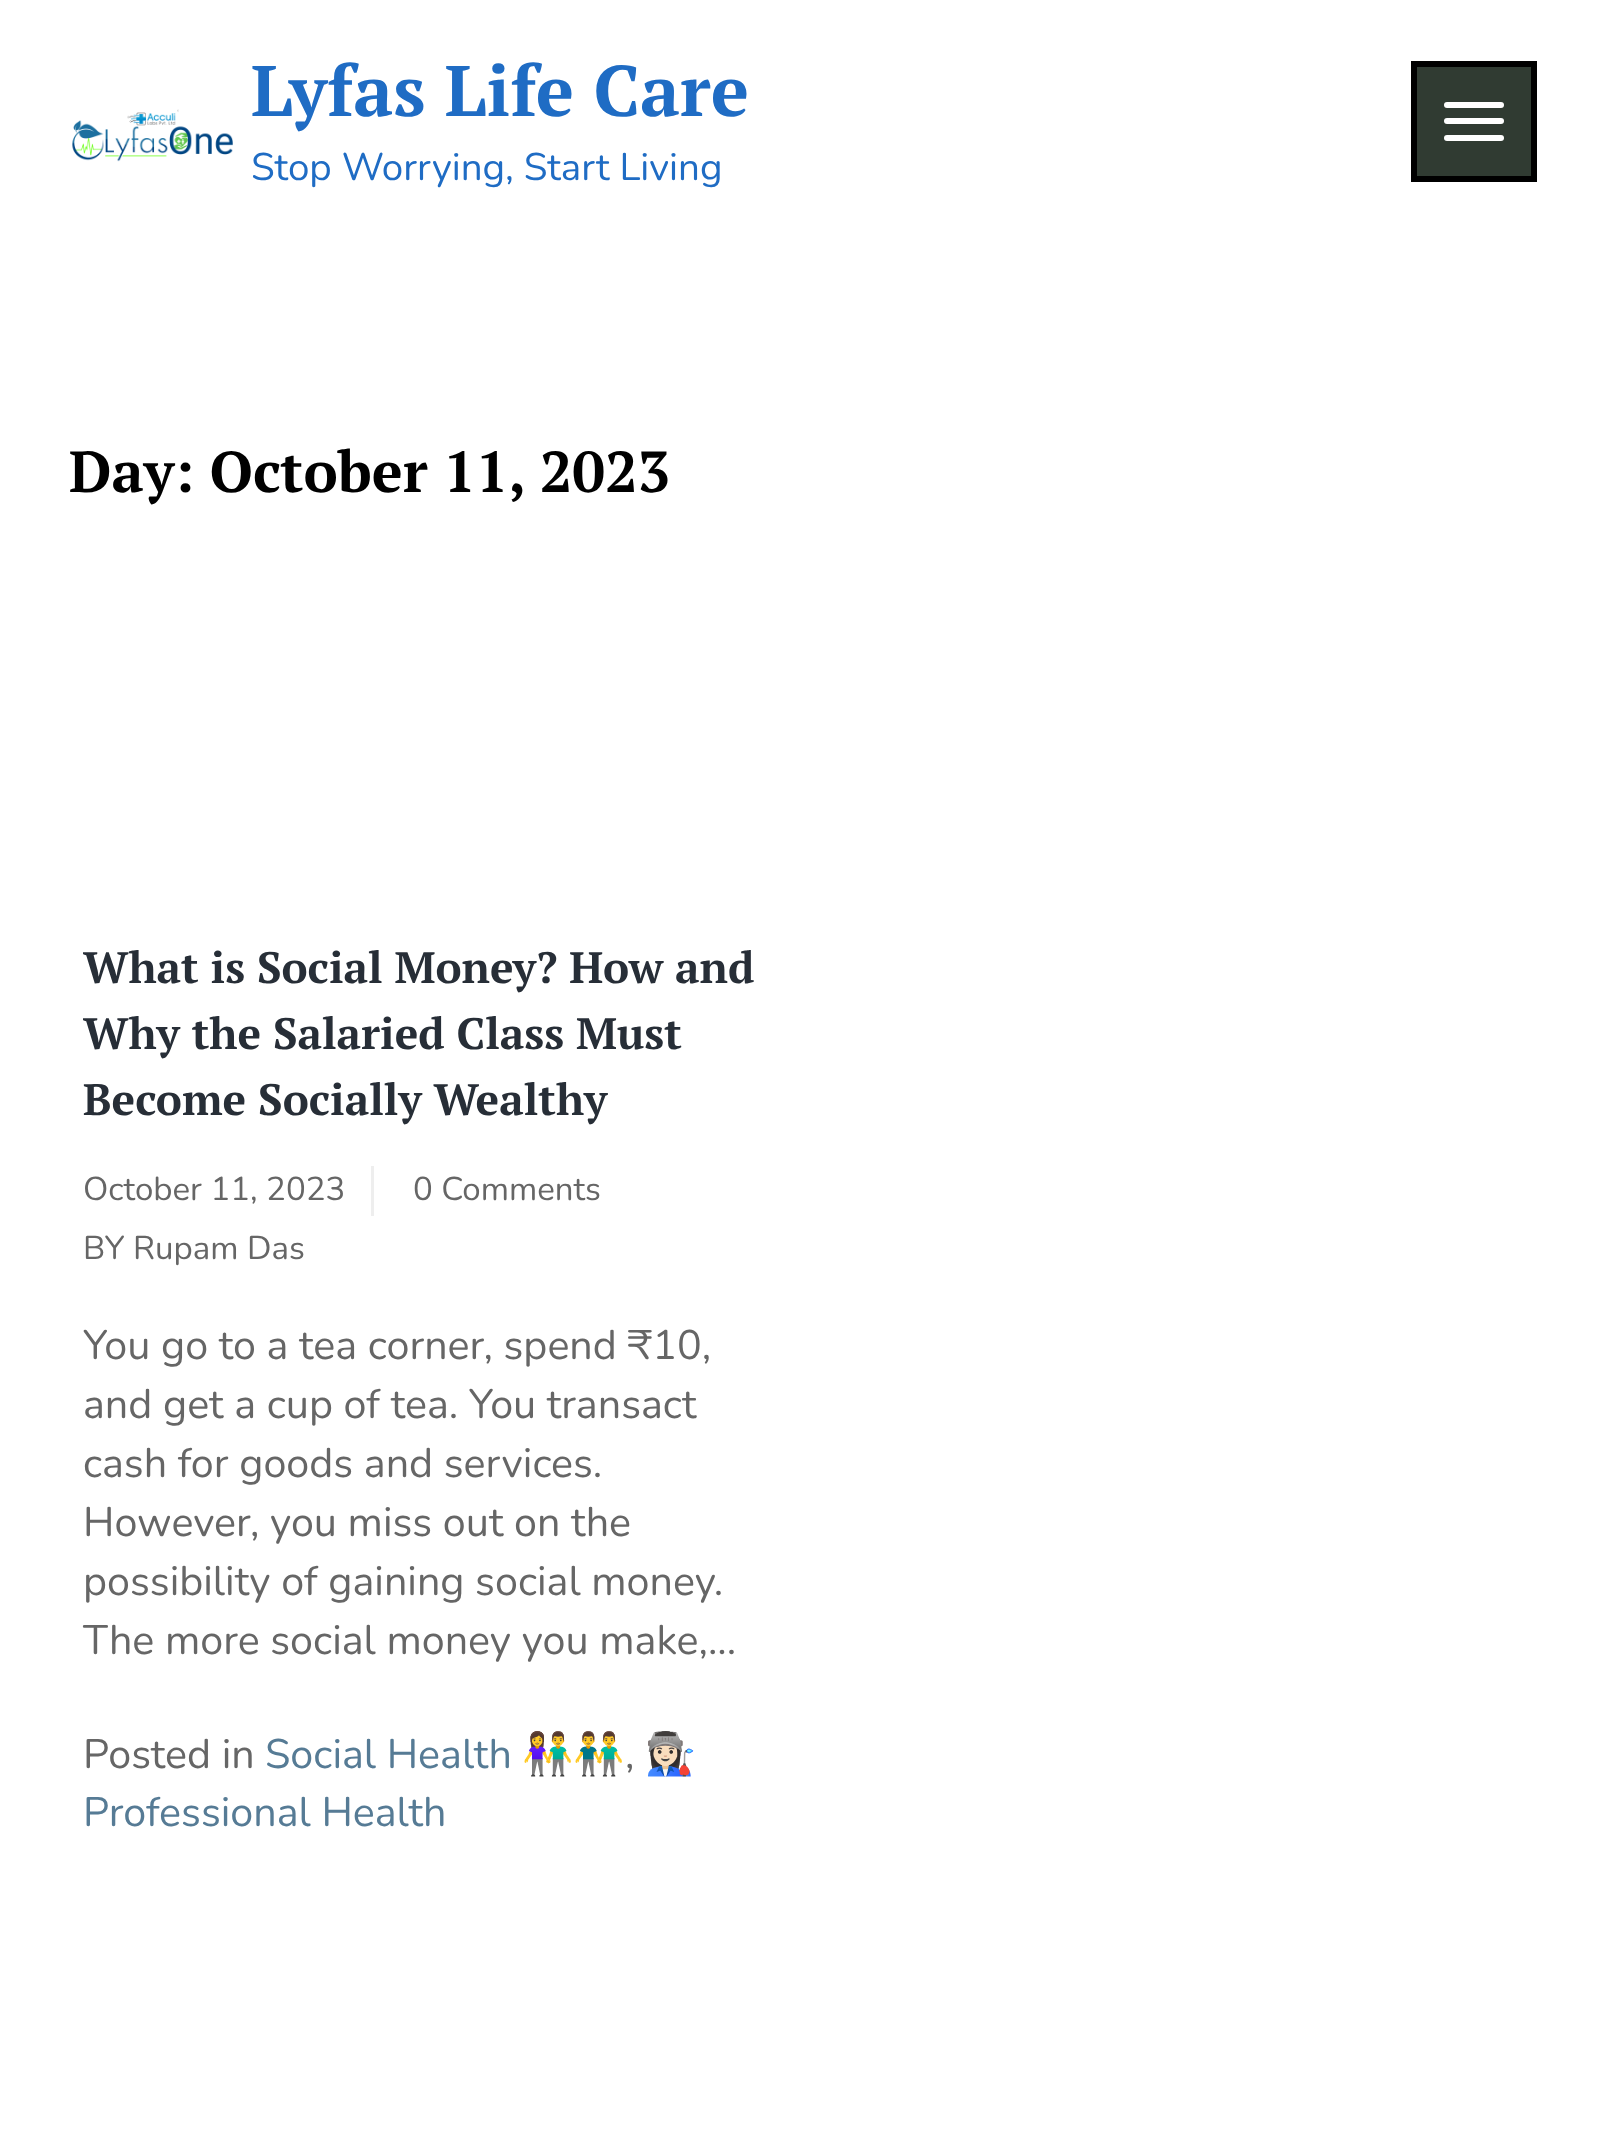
<!DOCTYPE html>
<meta charset="utf-8">
<style>body { margin: 0 } canvas { display: block }</style>
<canvas id="canvas" width="1606" height="2136"></canvas>
<img id="img1" src="images/1.png" hidden>
<script>
window.onload = function () {
    const canvas = document.getElementById('canvas');
    const context = canvas.getContext('2d');
    context.miterLimit = 4;
    context.fontKerning = 'normal';

    context.fillStyle = 'rgb(255, 255, 255)';
    context.fillRect(0, 0, 1606, 2136);
    context.drawImage(document.getElementById('img1'), 72, 109, 161, 53);
    context.fillStyle = 'rgb(48, 59, 50)';
    context.beginPath();
    context.rect(1414, 64, 120, 115);
    context.fill();
    context.strokeStyle = 'rgb(0, 0, 0)';
    context.lineWidth = 6;
    context.stroke();
    context.fillStyle = 'rgb(255, 255, 255)';
    context.beginPath();
    context.roundRect(1444, 102, 60, 6, 3);
    context.fill();
    context.beginPath();
    context.roundRect(1444, 118, 60, 6, 3);
    context.fill();
    context.beginPath();
    context.roundRect(1444, 135, 60, 6, 3);
    context.fill();
    context.fillStyle = 'rgb(238, 238, 238)';
    context.fillRect(371, 1166, 3, 50);
    context.font = 'bold 71.5px PT Serif';
    context.fillStyle = 'rgb(31, 108, 196)';
    context.fillText('Lyfas Life Care', 251, 116);
    context.font = '38.5px Nunito';
    context.fillText('Stop Worrying, Start Living', 251, 180);
    context.font = 'bold 57.75px PT Serif';
    context.fillStyle = 'rgb(0, 0, 0)';
    context.fillText('Day: October 11, 2023', 69, 492);
    context.font = 'bold 44px PT Serif';
    context.fillStyle = 'rgb(39, 46, 55)';
    context.fillText('What is Social Money? How and', 83, 983);
    context.fillText('Why the Salaried Class Must', 83, 1049);
    context.fillText('Become Socially Wealthy', 83, 1115);
    context.font = '33px Nunito';
    context.fillStyle = 'rgb(102, 102, 102)';
    context.fillText('October 11, 2023', 83, 1200);
    context.fillText('0 Comments', 413, 1200);
    context.fillText('BY', 83, 1259);
    context.fillText('Rupam Das', 133, 1259);
    context.font = '41.25px Nunito';
    context.fillText('You go to a tea corner, spend ₹10,', 83, 1359);
    context.fillText('and get a cup of tea. You transact', 83, 1418);
    context.fillText('cash for goods and services.', 83, 1477);
    context.fillText('However, you miss out on the', 83, 1536);
    context.fillText('possibility of gaining social money.', 83, 1595);
    context.fillText('The more social money you make,...', 83, 1654);
    context.fillText('Posted in', 83, 1768);
    context.fillStyle = 'rgb(86, 123, 149)';
    context.fillText('Social Health', 265, 1768);
    context.font = '41.25px Noto Color Emoji';
    context.fillText('👫👬', 522, 1768);
    context.font = '41.25px Nunito';
    context.fillStyle = 'rgb(102, 102, 102)';
    context.fillText(',', 625, 1768);
    context.font = '41.25px Noto Color Emoji';
    context.fillStyle = 'rgb(86, 123, 149)';
    context.fillText('👩🏻‍🏭', 645, 1768);
    context.font = '41.25px Nunito';
    context.fillText('Professional Health', 83, 1826);
};
</script>
